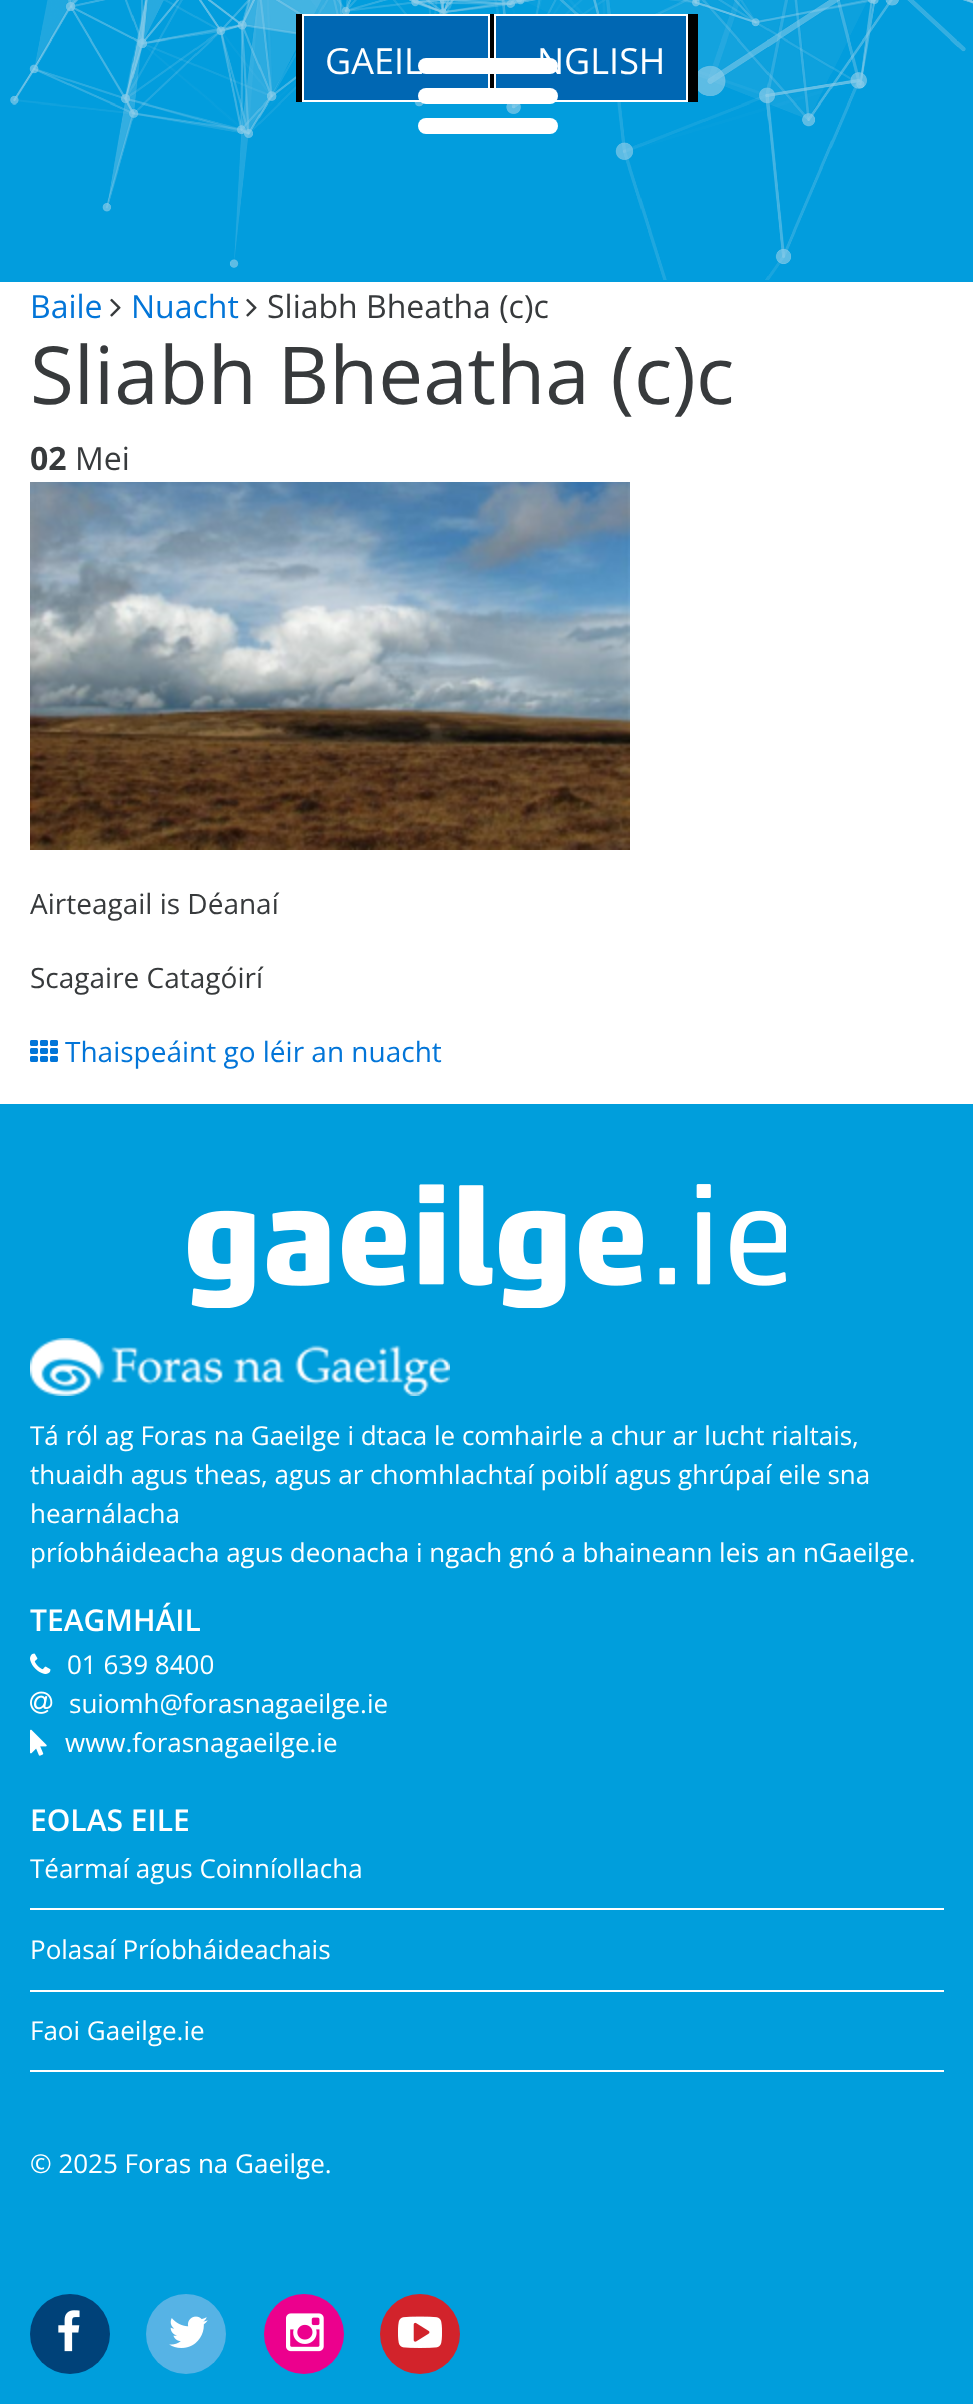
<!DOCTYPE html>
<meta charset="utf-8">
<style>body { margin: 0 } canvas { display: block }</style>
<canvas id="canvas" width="973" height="2404"></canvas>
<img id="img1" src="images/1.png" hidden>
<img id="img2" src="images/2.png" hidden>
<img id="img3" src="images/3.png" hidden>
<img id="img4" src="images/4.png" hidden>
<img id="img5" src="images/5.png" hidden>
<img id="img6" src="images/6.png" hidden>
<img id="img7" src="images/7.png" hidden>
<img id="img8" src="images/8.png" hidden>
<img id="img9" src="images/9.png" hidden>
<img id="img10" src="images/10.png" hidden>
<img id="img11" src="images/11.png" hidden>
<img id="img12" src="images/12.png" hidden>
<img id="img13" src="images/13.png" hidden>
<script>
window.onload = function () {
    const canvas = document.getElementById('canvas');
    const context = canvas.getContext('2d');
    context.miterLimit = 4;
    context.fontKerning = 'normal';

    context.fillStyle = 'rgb(255, 255, 255)';
    context.fillRect(0, 0, 973, 2404);
    context.fillStyle = 'rgb(2, 157, 221)';
    context.fillRect(0, 0, 973, 282);
    context.drawImage(document.getElementById('img1'), 10, 0, 963, 280);
    context.fillStyle = 'rgb(0, 0, 0)';
    context.fillRect(296, 14, 402, 88);
    context.fillStyle = 'rgb(0, 103, 179)';
    context.beginPath();
    context.rect(303, 15, 186, 86);
    context.fill();
    context.strokeStyle = 'rgb(255, 255, 255)';
    context.lineWidth = 2;
    context.stroke();
    context.beginPath();
    context.rect(495, 15, 192, 86);
    context.fill();
    context.stroke();
    context.fillStyle = 'rgb(255, 255, 255)';
    context.beginPath();
    context.roundRect(418, 58, 140, 16, 8);
    context.fill();
    context.beginPath();
    context.roundRect(418, 88, 140, 16, 8);
    context.fill();
    context.beginPath();
    context.roundRect(418, 118, 140, 16, 8);
    context.fill();
    context.drawImage(document.getElementById('img2'), 110, 298, 11, 19);
    context.drawImage(document.getElementById('img2'), 246, 298, 11, 19);
    context.drawImage(document.getElementById('img3'), 30, 482, 600, 368);
    context.drawImage(document.getElementById('img4'), 30, 1040, 28, 22);
    context.fillStyle = 'rgb(0, 158, 220)';
    context.fillRect(0, 1104, 973, 1300);
    context.drawImage(document.getElementById('img5'), 188, 1184, 598, 124);
    context.drawImage(document.getElementById('img6'), 30, 1338, 420, 58);
    context.drawImage(document.getElementById('img7'), 30, 1653, 21, 21);
    context.drawImage(document.getElementById('img8'), 30, 1691, 23, 23);
    context.drawImage(document.getElementById('img9'), 30, 1729, 17, 27);
    context.fillStyle = 'rgb(255, 255, 255)';
    context.fillRect(30, 1908, 914, 2);
    context.fillRect(30, 1990, 914, 2);
    context.fillRect(30, 2070, 914, 2);
    context.fillStyle = 'rgb(0, 66, 121)';
    context.beginPath();
    context.arc(70, 2334, 40, 0, 2 * Math.PI);
    context.fill();
    context.drawImage(document.getElementById('img10'), 58, 2310, 22, 42);
    context.fillStyle = 'rgb(86, 179, 229)';
    context.beginPath();
    context.arc(186, 2334, 40, 0, 2 * Math.PI);
    context.fill();
    context.drawImage(document.getElementById('img11'), 169, 2316, 39, 32);
    context.fillStyle = 'rgb(236, 0, 141)';
    context.beginPath();
    context.arc(304, 2334, 40, 0, 2 * Math.PI);
    context.fill();
    context.drawImage(document.getElementById('img12'), 286, 2313, 38, 39);
    context.fillStyle = 'rgb(210, 35, 43)';
    context.beginPath();
    context.arc(420, 2334, 40, 0, 2 * Math.PI);
    context.fill();
    context.drawImage(document.getElementById('img13'), 398, 2316, 44, 32);
    context.font = '36px Open Sans';
    context.fillStyle = 'rgb(255, 255, 255)';
    context.fillText('GAEIL', 325, 74);
    context.fillText('NGLISH', 537, 74);
    context.font = '32px Open Sans';
    context.fillStyle = 'rgb(2, 117, 216)';
    context.fillText('Baile', 30, 318);
    context.fillText('Nuacht', 131, 318);
    context.fillStyle = 'rgb(55, 58, 60)';
    context.fillText('Sliabh Bheatha (c)c', 267, 318);
    context.font = '80px Open Sans';
    context.fillText('Sliabh Bheatha (c)c', 30, 404);
    context.font = 'bold 32px Open Sans';
    context.fillText('02', 30, 470);
    context.font = '32px Open Sans';
    context.fillText('Mei', 75, 470);
    context.font = '28px Open Sans';
    context.fillText('Airteagail is Déanaí', 30, 914);
    context.fillText('Scagaire Catagóirí', 30, 988);
    context.fillStyle = 'rgb(2, 117, 216)';
    context.fillText('Thaispeáint go léir an nuacht', 65, 1062);
    context.font = '26px Open Sans';
    context.fillStyle = 'rgb(255, 255, 255)';
    context.fillText('Tá ról ag Foras na Gaeilge i dtaca le comhairle a chur ar lucht rialtais,', 30, 1445);
    context.fillText('thuaidh agus theas, agus ar chomhlachtaí poiblí agus ghrúpaí eile sna', 30, 1484);
    context.fillText('hearnálacha', 30, 1523);
    context.fillText('príobháideacha agus deonacha i ngach gnó a bhaineann leis an nGaeilge.', 30, 1562);
    context.font = '600 30px Open Sans';
    context.fillText('TEAGMHÁIL', 30, 1631);
    context.font = '26px Open Sans';
    context.fillText('01 639 8400', 67, 1674);
    context.fillText('suiomh@forasnagaeilge.ie', 69, 1713);
    context.fillText('www.forasnagaeilge.ie', 65, 1752);
    context.font = '600 30px Open Sans';
    context.fillText('EOLAS EILE', 30, 1831);
    context.font = '26px Open Sans';
    context.fillText('Téarmaí agus Coinníollacha', 30, 1878);
    context.fillText('Polasaí Príobháideachais', 30, 1959);
    context.fillText('Faoi Gaeilge.ie', 30, 2040);
    context.fillText('© 2025 Foras na Gaeilge.', 30, 2173);
};
</script>
